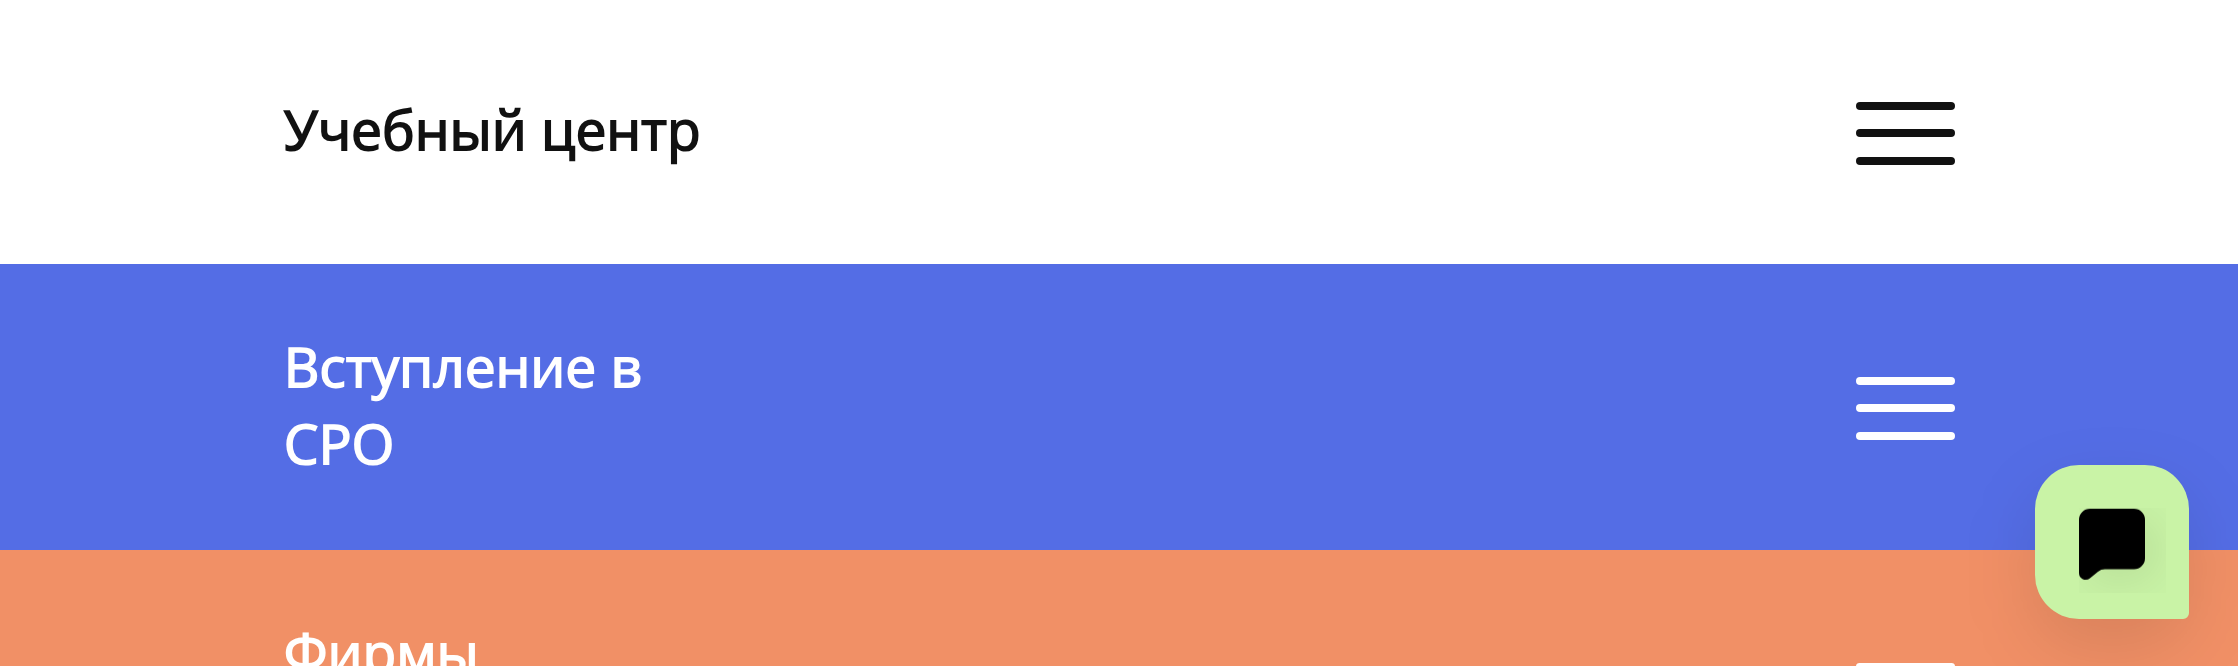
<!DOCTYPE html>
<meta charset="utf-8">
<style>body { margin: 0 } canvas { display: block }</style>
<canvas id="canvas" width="2238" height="666"></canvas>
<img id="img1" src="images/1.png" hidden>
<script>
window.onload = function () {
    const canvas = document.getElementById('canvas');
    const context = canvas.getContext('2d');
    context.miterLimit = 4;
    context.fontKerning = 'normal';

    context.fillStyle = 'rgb(255, 255, 255)';
    context.fillRect(0, 0, 2238, 666);
    context.fillStyle = 'rgb(17, 17, 17)';
    context.beginPath();
    context.roundRect(1856, 129, 99, 8, 4);
    context.fill();
    context.beginPath();
    context.roundRect(1856, 102, 99, 8, 4);
    context.fill();
    context.beginPath();
    context.roundRect(1856, 157, 99, 8, 4);
    context.fill();
    context.fillStyle = 'rgb(84, 109, 229)';
    context.fillRect(0, 264, 2238, 286);
    context.fillStyle = 'rgb(255, 255, 255)';
    context.beginPath();
    context.roundRect(1856, 404, 99, 8, 4);
    context.fill();
    context.beginPath();
    context.roundRect(1856, 377, 99, 8, 4);
    context.fill();
    context.beginPath();
    context.roundRect(1856, 432, 99, 8, 4);
    context.fill();
    context.fillStyle = 'rgb(241, 144, 102)';
    context.fillRect(0, 550, 2238, 116);
    context.fillStyle = 'rgb(255, 255, 255)';
    context.beginPath();
    context.roundRect(1856, 663, 99, 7, 4);
    context.fill();
    context.fillStyle = 'rgba(0, 0, 0, 0.1)';
    context.filter = 'blur(34.5px)';
    context.beginPath();
    context.roundRect(2035, 492, 154, 154, 44);
    context.fill();
    context.filter = 'none';
    context.fillStyle = 'rgb(201, 243, 166)';
    context.beginPath();
    context.roundRect(2035, 465, 154, 154, [44, 44, 6, 44]);
    context.fill();
    context.drawImage(document.getElementById('img1'), 2079, 508, 87, 85);
    context.font = 'bold 55px Open Sans';
    context.fillStyle = 'rgb(17, 17, 17)';
    context.fillText('Учебный центр', 283, 151);
    context.fillStyle = 'rgb(255, 255, 255)';
    context.fillText('Вступление в', 283, 388);
    context.fillText('СРО', 283, 465);
    context.fillText('Фирмы', 283, 674);
};
</script>
